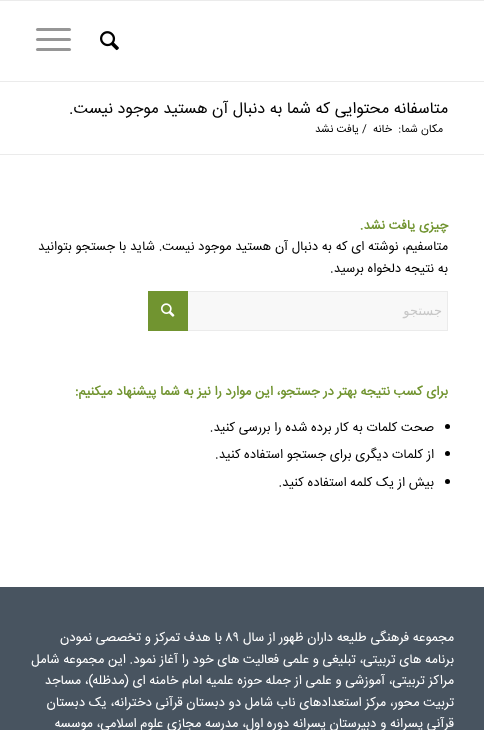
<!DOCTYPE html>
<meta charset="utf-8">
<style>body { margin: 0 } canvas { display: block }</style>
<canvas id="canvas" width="484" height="730"></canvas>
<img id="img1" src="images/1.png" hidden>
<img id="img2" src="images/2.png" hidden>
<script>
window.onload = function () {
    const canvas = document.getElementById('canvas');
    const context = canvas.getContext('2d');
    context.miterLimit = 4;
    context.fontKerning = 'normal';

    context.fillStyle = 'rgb(255, 255, 255)';
    context.fillRect(0, 0, 484, 730);
    context.fillStyle = 'rgb(235, 235, 235)';
    context.fillRect(0, 0, 484, 1);
    context.fillRect(0, 81, 484, 1);
    context.drawImage(document.getElementById('img1'), 100, 31, 19, 20);
    context.fillStyle = 'rgb(150, 150, 150)';
    context.beginPath();
    context.roundRect(36, 38, 35, 3, 1.5);
    context.fill();
    context.beginPath();
    context.roundRect(36, 28, 35, 3, 1.5);
    context.fill();
    context.beginPath();
    context.roundRect(36, 48, 35, 3, 1.5);
    context.fill();
    context.fillStyle = 'rgb(235, 235, 235)';
    context.fillRect(0, 154, 484, 1);
    context.fillStyle = 'rgb(248, 248, 248)';
    context.fillRect(188, 292, 259, 38);
    context.strokeStyle = 'rgb(235, 235, 235)';
    context.strokeRect(148.5, 291.5, 299, 39);
    context.fillStyle = 'rgb(113, 148, 48)';
    context.fillRect(148, 291, 40, 40);
    context.drawImage(document.getElementById('img2'), 161, 303, 14, 14);
    context.fillStyle = 'rgb(0, 0, 0)';
    context.beginPath();
    context.arc(447.5, 426.5, 2.5, 0, 2 * Math.PI);
    context.fill();
    context.beginPath();
    context.arc(447.5, 453.5, 2.5, 0, 2 * Math.PI);
    context.fill();
    context.beginPath();
    context.arc(447.5, 481.5, 2.5, 0, 2 * Math.PI);
    context.fill();
    context.fillStyle = 'rgb(72, 84, 96)';
    context.fillRect(0, 587, 484, 143);
    context.direction = 'rtl';
    context.font = '16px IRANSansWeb';
    context.fillStyle = 'rgb(0, 0, 0)';
    context.fillText('متاسفانه محتوایی که شما به دنبال آن هستید موجود نیست.', 448, 113);
    context.font = '11px IRANSansWeb';
    context.fillText('مکان شما:', 443, 132);
    context.fillText('خانه', 392, 132);
    context.direction = 'ltr';
    context.fillText('/', 362, 132);
    context.direction = 'rtl';
    context.fillText('یافت نشد', 359, 132);
    context.font = 'bold 13px IRANSansWeb';
    context.fillStyle = 'rgb(113, 148, 48)';
    context.fillText('چیزی یافت نشد.', 448, 229);
    context.font = '13px IRANSansWeb';
    context.fillStyle = 'rgb(0, 0, 0)';
    context.fillText('متاسفیم، نوشته ای که به دنبال آن هستید موجود نیست. شاید با جستجو بتوانید', 448, 250);
    context.fillText('به نتیجه دلخواه برسید.', 448, 272);
    context.font = '13px DejaVu Sans';
    context.fillStyle = 'rgb(199, 199, 199)';
    context.fillText('جستجو', 442, 315);
    context.font = 'bold 13px IRANSansWeb';
    context.fillStyle = 'rgb(113, 148, 48)';
    context.fillText('برای کسب نتیجه بهتر در جستجو، این موارد را نیز به شما پیشنهاد میکنیم:', 448, 395);
    context.font = '13px IRANSansWeb';
    context.fillStyle = 'rgb(0, 0, 0)';
    context.fillText('صحت کلمات به کار برده شده را بررسی کنید.', 434, 431);
    context.fillText('از کلمات دیگری برای جستجو استفاده کنید.', 434, 458);
    context.fillText('بیش از یک کلمه استفاده کنید.', 434, 486);
    context.fillStyle = 'rgb(255, 255, 255)';
    context.fillText('مجموعه فرهنگی طلیعه داران ظهور از سال', 454, 641);
    context.direction = 'ltr';
    context.fillText('۸۹', 225, 641);
    context.direction = 'rtl';
    context.fillText('با هدف تمرکز و تخصصی نمودن', 222, 641);
    context.fillText('برنامه های تربیتی، تبلیغی و علمی فعالیت های خود را آغاز نمود. این مجموعه شامل', 454, 663);
    context.fillText('مراکز تربیتی،‌ آموزشی و علمی از جمله حوزه علمیه امام خامنه ای (مدظله)، مساجد', 454, 684);
    context.fillText('تربیت محور، مرکز استعدادهای ناب شامل دو دبستان قرآنی دخترانه، یک دبستان', 454, 706);
    context.fillText('قرآنی پسرانه و دبیرستان پسرانه دوره اول، مدرسه مجازی علوم اسلامی، موسسه', 454, 727);
};
</script>
